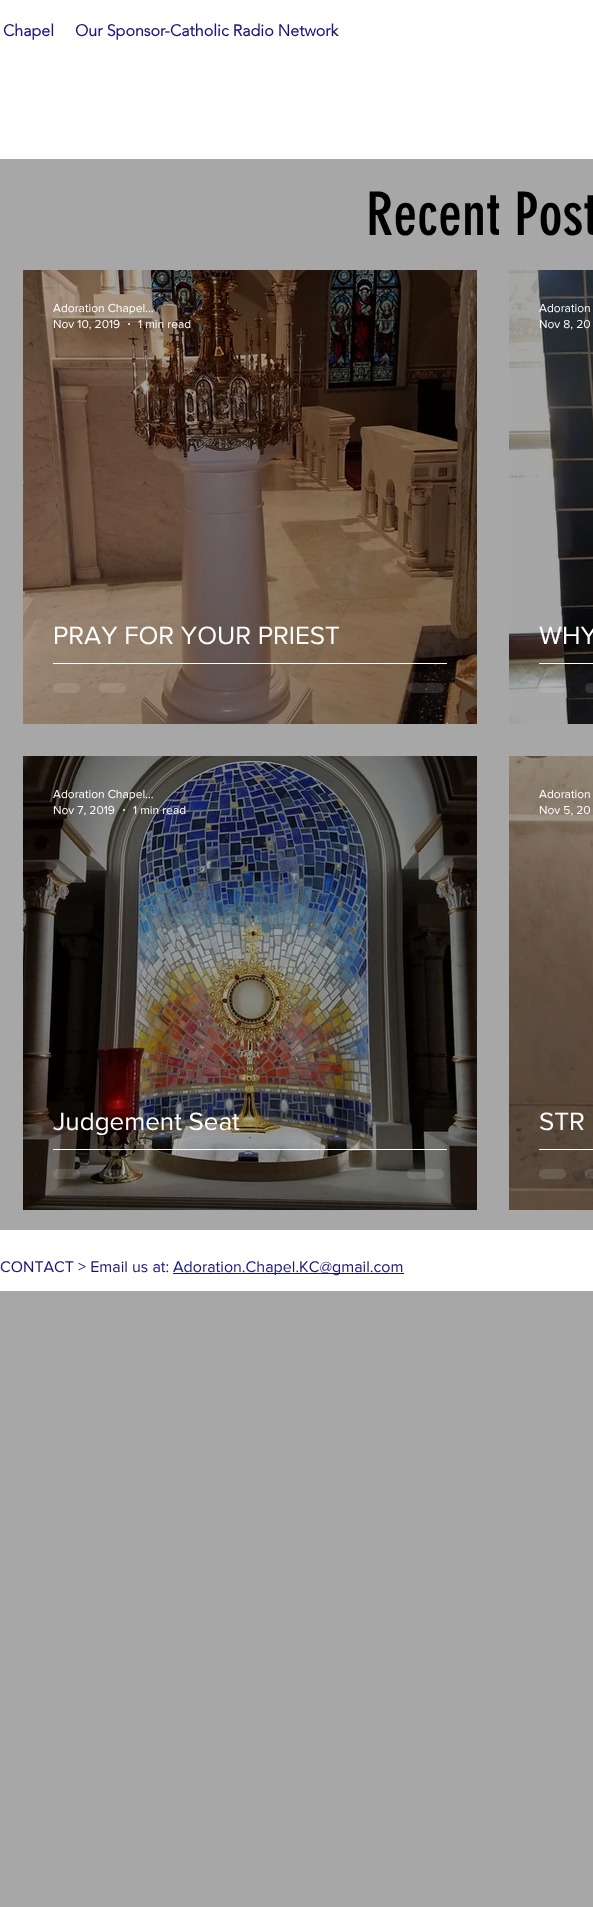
<!DOCTYPE html>
<meta charset="utf-8">
<style>body { margin: 0 } canvas { display: block }</style>
<canvas id="canvas" width="593" height="1907"></canvas>
<img id="img1" src="images/1.png" hidden>
<img id="img2" src="images/2.png" hidden>
<img id="img3" src="images/3.png" hidden>
<img id="img4" src="images/4.png" hidden>
<script>
window.onload = function () {
    const canvas = document.getElementById('canvas');
    const context = canvas.getContext('2d');
    context.miterLimit = 4;
    context.fontKerning = 'normal';

    context.fillStyle = 'rgb(167, 167, 167)';
    context.fillRect(0, 0, 593, 1907);
    context.fillStyle = 'rgb(255, 255, 255)';
    context.fillRect(0, 0, 593, 159);
    context.drawImage(document.getElementById('img1'), 23, 270, 454, 454);
    context.beginPath();
    context.arc(129, 324, 1, 0, 2 * Math.PI);
    context.fill();
    context.fillRect(53, 663, 394, 1);
    context.fillStyle = 'rgba(255, 255, 255, 0.12)';
    context.beginPath();
    context.roundRect(53, 683, 27, 10, 5);
    context.fill();
    context.beginPath();
    context.roundRect(99, 683, 27, 10, 5);
    context.fill();
    context.beginPath();
    context.roundRect(407, 683, 37, 10, 5);
    context.fill();
    context.drawImage(document.getElementById('img2'), 509, 270, 84, 454);
    context.fillStyle = 'rgb(255, 255, 255)';
    context.fillRect(539, 663, 54, 1);
    context.fillStyle = 'rgba(255, 255, 255, 0.12)';
    context.beginPath();
    context.roundRect(539, 683, 27, 10, 5);
    context.fill();
    context.beginPath();
    context.roundRect(585, 683, 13, 10, 5);
    context.fill();
    context.drawImage(document.getElementById('img3'), 23, 756, 454, 454);
    context.fillStyle = 'rgb(255, 255, 255)';
    context.beginPath();
    context.arc(124, 810, 1, 0, 2 * Math.PI);
    context.fill();
    context.fillRect(53, 1149, 394, 1);
    context.fillStyle = 'rgba(255, 255, 255, 0.12)';
    context.beginPath();
    context.roundRect(53, 1169, 27, 10, 5);
    context.fill();
    context.beginPath();
    context.roundRect(99, 1169, 27, 10, 5);
    context.fill();
    context.beginPath();
    context.roundRect(407, 1169, 37, 10, 5);
    context.fill();
    context.drawImage(document.getElementById('img4'), 509, 756, 84, 454);
    context.fillStyle = 'rgb(255, 255, 255)';
    context.fillRect(539, 1149, 54, 1);
    context.fillStyle = 'rgba(255, 255, 255, 0.12)';
    context.beginPath();
    context.roundRect(539, 1169, 27, 10, 5);
    context.fill();
    context.beginPath();
    context.roundRect(585, 1169, 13, 10, 5);
    context.fill();
    context.fillStyle = 'rgb(255, 255, 255)';
    context.fillRect(0, 1230, 593, 61);
    context.fillStyle = 'rgb(24, 21, 124)';
    context.fillRect(173, 1273, 231, 1);
    context.font = 'bold 16px "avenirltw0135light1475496"';
    context.fillText('Chapel', 3, 36);
    context.fillText('Our Sponsor-Catholic Radio Network', 75, 36);
    context.font = '59px "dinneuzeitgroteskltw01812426"';
    context.fillStyle = 'rgb(0, 0, 0)';
    context.fillText('Recent Post', 366, 235);
    context.font = '12px "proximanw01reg"';
    context.fillStyle = 'rgb(255, 255, 255)';
    context.fillText('Adoration Chapel...', 53, 312);
    context.fillText('Nov 10, 2019', 53, 328);
    context.fillText('1 min read', 138, 328);
    context.font = '26px "proximanw01reg"';
    context.fillText('PRAY FOR YOUR PRIEST', 53, 644);
    context.font = '12px "proximanw01reg"';
    context.fillText('Adoration', 539, 312);
    context.fillText('Nov 8, 20', 539, 328);
    context.font = '26px "proximanw01reg"';
    context.fillText('WHY', 539, 644);
    context.font = '12px "proximanw01reg"';
    context.fillText('Adoration Chapel...', 53, 798);
    context.fillText('Nov 7, 2019', 53, 814);
    context.fillText('1 min read', 133, 814);
    context.font = '26px "proximanw01reg"';
    context.fillText('Judgement Seat', 53, 1130);
    context.font = '12px "proximanw01reg"';
    context.fillText('Adoration', 539, 798);
    context.fillText('Nov 5, 20', 539, 814);
    context.font = '26px "proximanw01reg"';
    context.fillText('STR', 539, 1130);
    context.font = '16px "proximanw01reg"';
    context.fillStyle = 'rgb(24, 21, 124)';
    context.fillText('CONTACT > Email us at:', 0, 1272);
    context.fillText('Adoration.Chapel.KC@gmail.com', 173, 1272);
};
</script>
